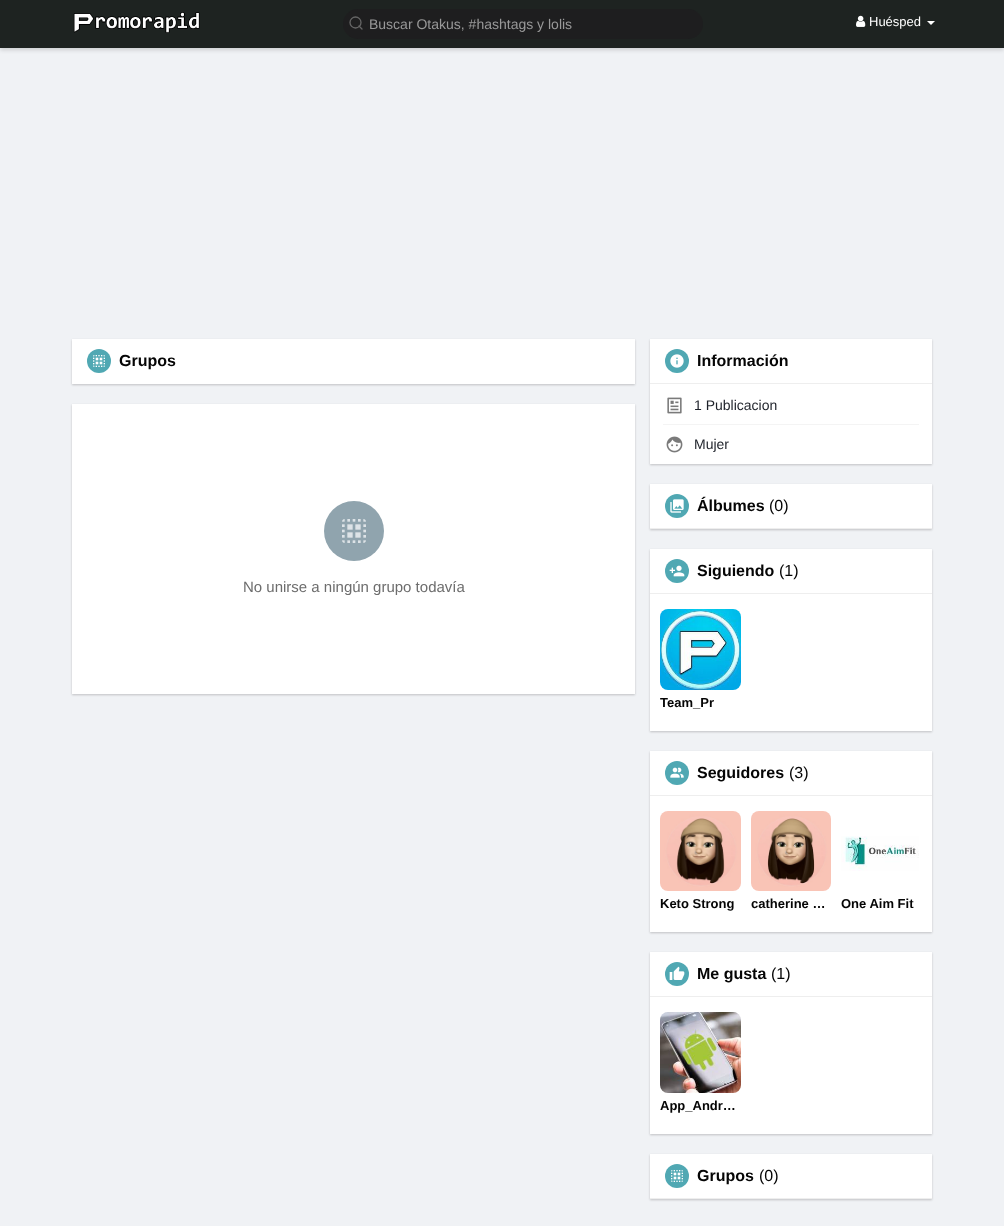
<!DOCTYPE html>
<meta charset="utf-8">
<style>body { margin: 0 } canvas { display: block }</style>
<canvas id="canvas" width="1004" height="1226"></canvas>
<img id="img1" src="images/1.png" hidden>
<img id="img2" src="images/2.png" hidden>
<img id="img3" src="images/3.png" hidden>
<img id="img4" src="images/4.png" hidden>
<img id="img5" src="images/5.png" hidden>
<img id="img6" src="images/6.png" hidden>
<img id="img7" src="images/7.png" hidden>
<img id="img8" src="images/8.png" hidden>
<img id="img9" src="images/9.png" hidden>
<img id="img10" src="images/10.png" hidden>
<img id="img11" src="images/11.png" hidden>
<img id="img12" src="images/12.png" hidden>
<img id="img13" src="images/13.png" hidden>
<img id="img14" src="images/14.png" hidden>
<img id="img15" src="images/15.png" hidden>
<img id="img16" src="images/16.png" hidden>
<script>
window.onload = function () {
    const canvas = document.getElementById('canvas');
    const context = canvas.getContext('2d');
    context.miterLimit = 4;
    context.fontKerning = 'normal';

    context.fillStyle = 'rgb(240, 242, 245)';
    context.fillRect(0, 0, 1004, 1226);
    context.fillStyle = 'rgba(0, 0, 0, 0.15)';
    context.filter = 'blur(2px)';
    context.beginPath();
    context.rect(0, 2, 1004, 48);
    context.fill();
    context.filter = 'none';
    context.fillStyle = 'rgb(30, 35, 33)';
    context.fillRect(0, 0, 1004, 48);
    context.drawImage(document.getElementById('img1'), 73, 12, 127, 21);
    context.fillStyle = 'rgb(30, 30, 31)';
    context.beginPath();
    context.roundRect(343, 9, 360, 30, 15);
    context.fill();
    context.beginPath();
    context.arc(355.5, 22.5, 5.5, 0, 2 * Math.PI);
    context.strokeStyle = 'rgb(102, 102, 102)';
    context.lineWidth = 1.3;
    context.stroke();
    context.beginPath();
    context.moveTo(362, 29);
    context.lineTo(359, 26);
    context.lineCap = 'round';
    context.lineJoin = 'round';
    context.stroke();
    context.drawImage(document.getElementById('img2'), 856, 15, 10, 12);
    context.fillStyle = 'rgb(255, 255, 255)';
    context.beginPath();
    context.moveTo(927, 21);
    context.lineTo(935, 21);
    context.lineTo(931, 25);
    context.closePath();
    context.fill();
    context.fillStyle = 'rgba(0, 0, 0, 0.2)';
    context.filter = 'blur(1px)';
    context.beginPath();
    context.rect(72, 340, 563, 45);
    context.fill();
    context.filter = 'none';
    context.fillStyle = 'rgb(255, 255, 255)';
    context.fillRect(72, 339, 563, 45);
    context.fillStyle = 'rgb(80, 168, 179)';
    context.beginPath();
    context.arc(99, 361, 12, 0, 2 * Math.PI);
    context.fill();
    context.drawImage(document.getElementById('img3'), 93, 355, 12, 12);
    context.fillStyle = 'rgba(0, 0, 0, 0.2)';
    context.filter = 'blur(1px)';
    context.beginPath();
    context.rect(72, 405, 563, 290);
    context.fill();
    context.filter = 'none';
    context.fillStyle = 'rgb(255, 255, 255)';
    context.fillRect(72, 404, 563, 290);
    context.fillStyle = 'rgb(144, 164, 174)';
    context.beginPath();
    context.arc(354, 531, 30, 0, 2 * Math.PI);
    context.fill();
    context.drawImage(document.getElementById('img4'), 342, 519, 24, 24);
    context.fillStyle = 'rgba(0, 0, 0, 0.2)';
    context.filter = 'blur(1px)';
    context.beginPath();
    context.rect(650, 340, 282, 125);
    context.fill();
    context.filter = 'none';
    context.fillStyle = 'rgb(255, 255, 255)';
    context.fillRect(650, 339, 282, 125);
    context.fillStyle = 'rgb(238, 238, 238)';
    context.fillRect(650, 383, 282, 1);
    context.fillStyle = 'rgb(80, 168, 179)';
    context.beginPath();
    context.arc(677, 361, 12, 0, 2 * Math.PI);
    context.fill();
    context.drawImage(document.getElementById('img5'), 670, 354, 14, 14);
    context.drawImage(document.getElementById('img6'), 667, 397, 15, 17);
    context.fillStyle = 'rgb(244, 244, 244)';
    context.fillRect(663, 424, 256, 1);
    context.drawImage(document.getElementById('img7'), 666, 436, 17, 17);
    context.fillStyle = 'rgba(0, 0, 0, 0.2)';
    context.filter = 'blur(1px)';
    context.beginPath();
    context.rect(650, 485, 282, 45);
    context.fill();
    context.filter = 'none';
    context.fillStyle = 'rgb(255, 255, 255)';
    context.fillRect(650, 484, 282, 44);
    context.fillStyle = 'rgb(238, 238, 238)';
    context.fillRect(650, 528, 282, 1);
    context.fillStyle = 'rgb(80, 168, 179)';
    context.beginPath();
    context.arc(677, 506, 12, 0, 2 * Math.PI);
    context.fill();
    context.drawImage(document.getElementById('img8'), 670, 499, 14, 14);
    context.fillStyle = 'rgba(0, 0, 0, 0.2)';
    context.filter = 'blur(1px)';
    context.beginPath();
    context.rect(650, 550, 282, 182);
    context.fill();
    context.filter = 'none';
    context.fillStyle = 'rgb(255, 255, 255)';
    context.fillRect(650, 549, 282, 182);
    context.fillStyle = 'rgb(238, 238, 238)';
    context.fillRect(650, 593, 282, 1);
    context.fillStyle = 'rgb(80, 168, 179)';
    context.beginPath();
    context.arc(677, 571, 12, 0, 2 * Math.PI);
    context.fill();
    context.drawImage(document.getElementById('img9'), 669, 565, 16, 12);
    context.drawImage(document.getElementById('img10'), 660, 609, 81, 81);
    context.fillStyle = 'rgba(0, 0, 0, 0.2)';
    context.filter = 'blur(1px)';
    context.beginPath();
    context.rect(650, 752, 282, 181);
    context.fill();
    context.filter = 'none';
    context.fillStyle = 'rgb(255, 255, 255)';
    context.fillRect(650, 751, 282, 181);
    context.fillStyle = 'rgb(238, 238, 238)';
    context.fillRect(650, 795, 282, 1);
    context.fillStyle = 'rgb(80, 168, 179)';
    context.beginPath();
    context.arc(677, 773, 12, 0, 2 * Math.PI);
    context.fill();
    context.drawImage(document.getElementById('img11'), 670, 767, 14, 11);
    context.drawImage(document.getElementById('img12'), 660, 811, 81, 80);
    context.drawImage(document.getElementById('img13'), 751, 811, 80, 80);
    context.drawImage(document.getElementById('img14'), 841, 836, 78, 35);
    context.fillStyle = 'rgba(0, 0, 0, 0.2)';
    context.filter = 'blur(1px)';
    context.beginPath();
    context.rect(650, 953, 282, 182);
    context.fill();
    context.filter = 'none';
    context.fillStyle = 'rgb(255, 255, 255)';
    context.fillRect(650, 952, 282, 182);
    context.fillStyle = 'rgb(238, 238, 238)';
    context.fillRect(650, 996, 282, 1);
    context.fillStyle = 'rgb(80, 168, 179)';
    context.beginPath();
    context.arc(677, 974, 12, 0, 2 * Math.PI);
    context.fill();
    context.drawImage(document.getElementById('img15'), 669, 966, 16, 14);
    context.drawImage(document.getElementById('img16'), 660, 1012, 81, 81);
    context.fillStyle = 'rgba(0, 0, 0, 0.2)';
    context.filter = 'blur(1px)';
    context.beginPath();
    context.rect(650, 1155, 282, 45);
    context.fill();
    context.filter = 'none';
    context.fillStyle = 'rgb(255, 255, 255)';
    context.fillRect(650, 1154, 282, 44);
    context.fillStyle = 'rgb(238, 238, 238)';
    context.fillRect(650, 1198, 282, 1);
    context.fillStyle = 'rgb(80, 168, 179)';
    context.beginPath();
    context.arc(677, 1176, 12, 0, 2 * Math.PI);
    context.fill();
    context.drawImage(document.getElementById('img3'), 671, 1170, 12, 12);
    context.font = '14px Liberation Sans';
    context.fillStyle = 'rgb(153, 153, 153)';
    context.fillText('Buscar Otakus, #hashtags y lolis', 369, 29);
    context.font = '13px Liberation Sans';
    context.fillStyle = 'rgb(255, 255, 255)';
    context.fillText('Huésped', 869, 26);
    context.font = 'bold 16px Liberation Sans';
    context.fillStyle = 'rgb(5, 5, 5)';
    context.fillText('Grupos', 119, 366);
    context.font = '15px Liberation Sans';
    context.fillStyle = 'rgb(109, 109, 109)';
    context.fillText('No unirse a ningún grupo todavía', 243, 592);
    context.font = 'bold 16px Liberation Sans';
    context.fillStyle = 'rgb(5, 5, 5)';
    context.fillText('Información', 697, 366);
    context.font = '14px Liberation Sans';
    context.fillStyle = 'rgb(29, 33, 41)';
    context.fillText('1 Publicacion', 694, 410);
    context.fillText('Mujer', 694, 449);
    context.font = 'bold 16px Liberation Sans';
    context.fillStyle = 'rgb(5, 5, 5)';
    context.fillText('Álbumes', 697, 511);
    context.font = '16px Liberation Sans';
    context.fillText('(0)', 769, 511);
    context.font = 'bold 16px Liberation Sans';
    context.fillText('Siguiendo', 697, 576);
    context.font = '16px Liberation Sans';
    context.fillText('(1)', 779, 576);
    context.font = 'bold 13px Liberation Sans';
    context.fillText('Team_Pr', 660, 707);
    context.font = 'bold 16px Liberation Sans';
    context.fillText('Seguidores', 697, 778);
    context.font = '16px Liberation Sans';
    context.fillText('(3)', 789, 778);
    context.font = 'bold 13px Liberation Sans';
    context.fillText('Keto Strong', 660, 908);
    context.fillText('catherine …', 751, 908);
    context.fillText('One Aim Fit', 841, 908);
    context.font = 'bold 16px Liberation Sans';
    context.fillText('Me gusta', 697, 979);
    context.font = '16px Liberation Sans';
    context.fillText('(1)', 771, 979);
    context.font = 'bold 13px Liberation Sans';
    context.fillText('App_Andr…', 660, 1110);
    context.font = 'bold 16px Liberation Sans';
    context.fillText('Grupos', 697, 1181);
    context.font = '16px Liberation Sans';
    context.fillText('(0)', 759, 1181);
};
</script>
